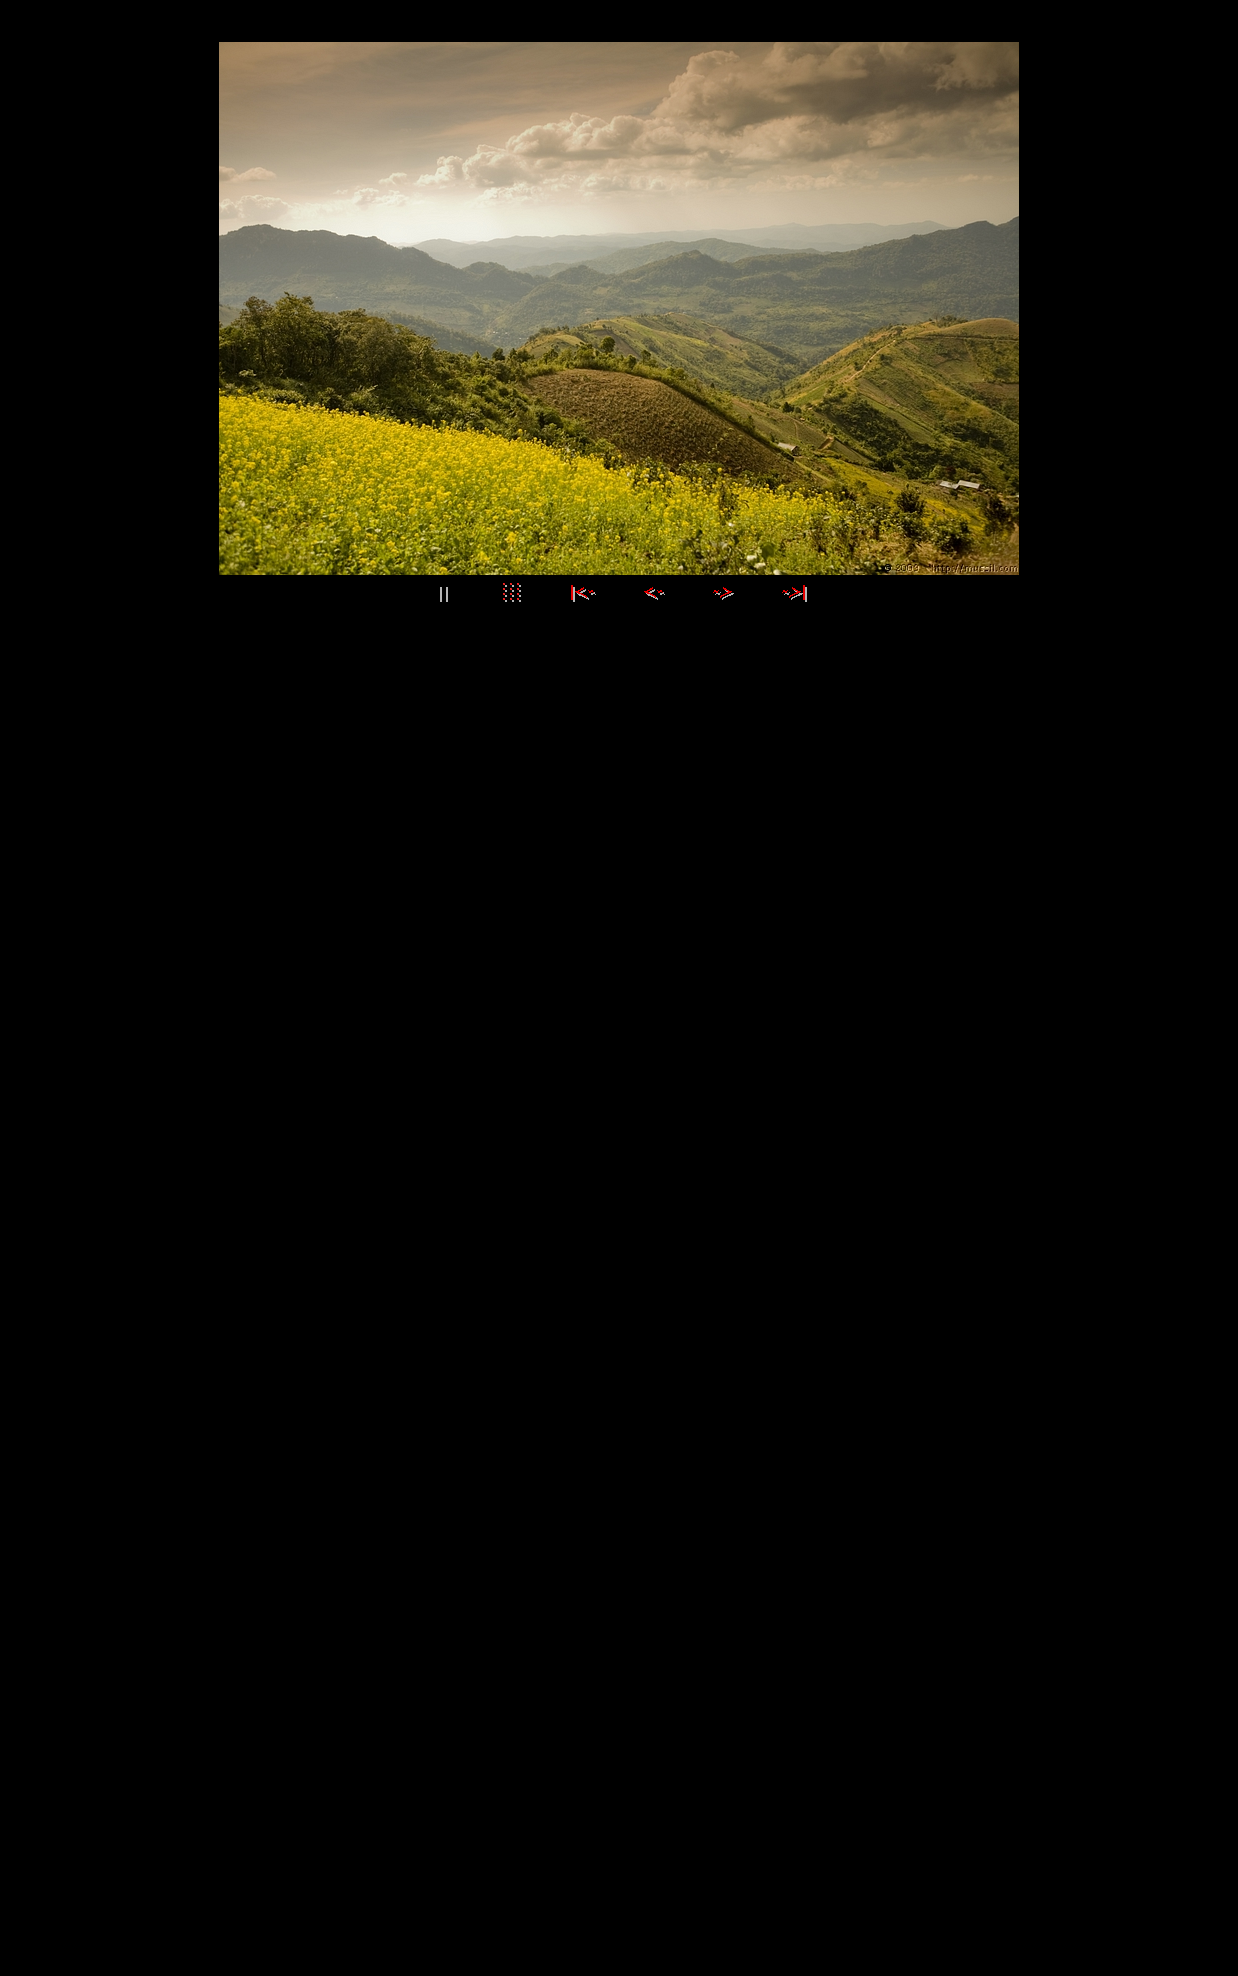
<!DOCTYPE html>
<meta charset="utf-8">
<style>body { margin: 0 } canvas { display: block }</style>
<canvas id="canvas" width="1238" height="1976"></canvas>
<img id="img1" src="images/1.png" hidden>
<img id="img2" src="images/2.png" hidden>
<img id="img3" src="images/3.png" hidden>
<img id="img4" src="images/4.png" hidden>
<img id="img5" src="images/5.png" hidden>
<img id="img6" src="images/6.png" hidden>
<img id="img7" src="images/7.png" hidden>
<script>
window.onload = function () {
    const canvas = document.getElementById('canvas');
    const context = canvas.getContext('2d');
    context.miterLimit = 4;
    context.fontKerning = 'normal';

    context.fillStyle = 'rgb(0, 0, 0)';
    context.fillRect(0, 0, 1238, 1976);
    context.drawImage(document.getElementById('img1'), 219, 42, 800, 533);
    context.drawImage(document.getElementById('img2'), 440, 587, 8, 15);
    context.drawImage(document.getElementById('img3'), 503, 583, 18, 19);
    context.drawImage(document.getElementById('img4'), 571, 585, 25, 17);
    context.drawImage(document.getElementById('img5'), 644, 587, 21, 13);
    context.drawImage(document.getElementById('img6'), 713, 587, 21, 13);
    context.drawImage(document.getElementById('img7'), 782, 585, 25, 17);
};
</script>
